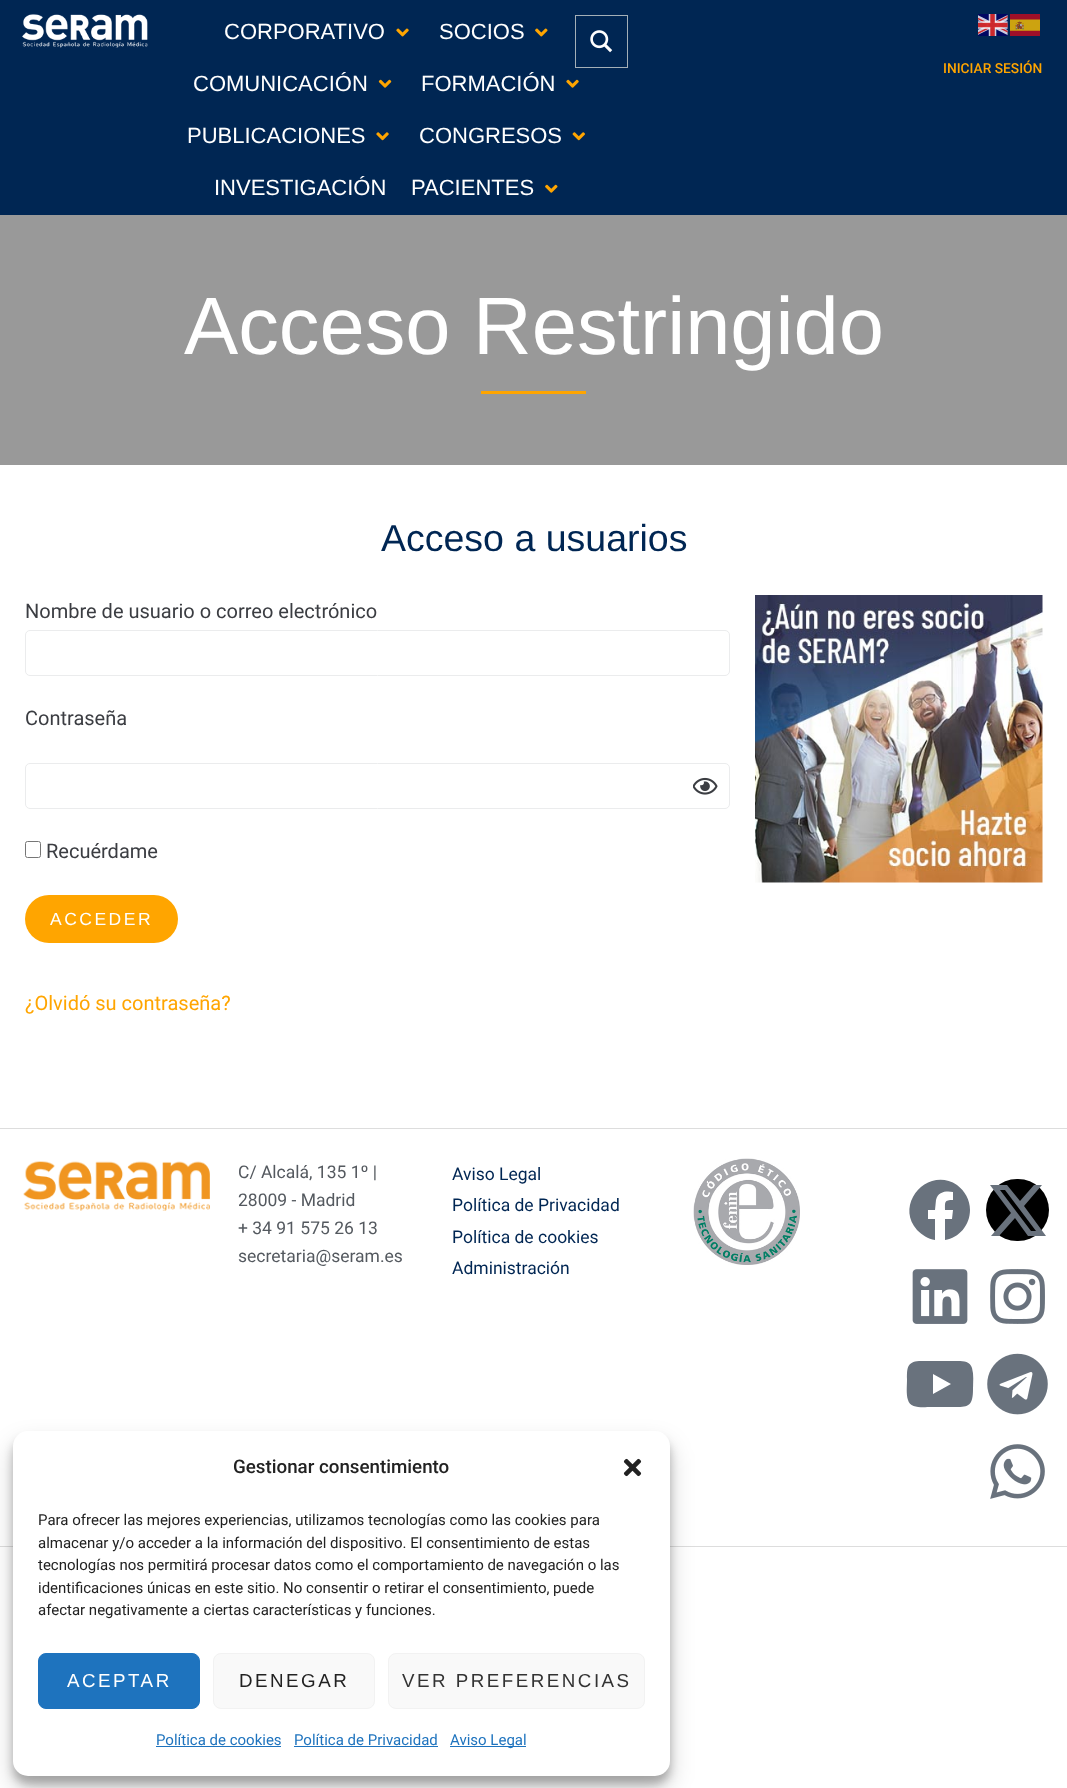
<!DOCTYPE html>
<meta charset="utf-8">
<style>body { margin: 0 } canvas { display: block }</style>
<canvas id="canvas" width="1067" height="1788"></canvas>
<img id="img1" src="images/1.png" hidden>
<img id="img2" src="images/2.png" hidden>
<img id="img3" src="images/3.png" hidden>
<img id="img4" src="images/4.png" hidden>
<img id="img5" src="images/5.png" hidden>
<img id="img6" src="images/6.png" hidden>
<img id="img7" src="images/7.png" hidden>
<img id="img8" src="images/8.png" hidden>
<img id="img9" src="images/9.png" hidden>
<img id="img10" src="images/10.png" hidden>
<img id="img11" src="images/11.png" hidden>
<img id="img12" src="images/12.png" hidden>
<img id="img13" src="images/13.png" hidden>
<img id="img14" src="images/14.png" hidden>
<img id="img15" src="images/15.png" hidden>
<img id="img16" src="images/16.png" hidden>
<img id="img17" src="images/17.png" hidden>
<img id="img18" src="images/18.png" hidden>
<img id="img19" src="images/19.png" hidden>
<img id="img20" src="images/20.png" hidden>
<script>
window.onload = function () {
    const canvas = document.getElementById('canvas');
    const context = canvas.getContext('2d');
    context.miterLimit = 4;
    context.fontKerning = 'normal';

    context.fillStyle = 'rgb(255, 255, 255)';
    context.fillRect(0, 0, 1067, 1788);
    context.fillStyle = 'rgb(0, 38, 83)';
    context.fillRect(0, 0, 1067, 215);
    context.drawImage(document.getElementById('img1'), 22, 14, 126, 34);
    context.drawImage(document.getElementById('img2'), 396, 28, 13, 9);
    context.drawImage(document.getElementById('img3'), 535, 28, 13, 9);
    context.drawImage(document.getElementById('img4'), 378, 79, 14, 9);
    context.drawImage(document.getElementById('img5'), 566, 79, 13, 9);
    context.drawImage(document.getElementById('img6'), 376, 132, 13, 9);
    context.drawImage(document.getElementById('img7'), 572, 132, 13, 9);
    context.drawImage(document.getElementById('img8'), 545, 184, 13, 9);
    context.strokeStyle = 'rgb(164, 175, 183)';
    context.strokeRect(575.5, 15.5, 52, 52);
    context.drawImage(document.getElementById('img9'), 590, 30, 23, 23);
    context.drawImage(document.getElementById('img10'), 978, 14, 30, 22);
    context.drawImage(document.getElementById('img11'), 1010, 14, 30, 22);
    context.fillStyle = 'rgb(153, 153, 153)';
    context.fillRect(0, 215, 1067, 250);
    context.fillStyle = 'rgb(255, 165, 0)';
    context.fillRect(481, 391, 105, 3);
    context.beginPath();
    context.roundRect(25.5, 630.5, 704, 45, 4.5);
    context.strokeStyle = 'rgb(235, 236, 237)';
    context.stroke();
    context.beginPath();
    context.roundRect(25.5, 763.5, 704, 45, 4.5);
    context.stroke();
    context.drawImage(document.getElementById('img12'), 693, 777, 25, 18);
    context.beginPath();
    context.roundRect(25.5, 841.5, 15, 16, 2);
    context.strokeStyle = 'rgb(118, 118, 118)';
    context.stroke();
    context.beginPath();
    context.roundRect(25, 895, 153, 48, 24);
    context.fill();
    context.drawImage(document.getElementById('img13'), 755, 595, 288, 288);
    context.fillStyle = 'rgb(221, 221, 221)';
    context.fillRect(0, 1128, 1067, 1);
    context.drawImage(document.getElementById('img14'), 23, 1161, 187, 50);
    context.drawImage(document.getElementById('img15'), 693, 1158, 107, 107);
    context.fillStyle = 'rgb(105, 114, 125)';
    context.beginPath();
    context.moveTo(970, 1210);
    context.bezierCurveTo(970, 1225, 959, 1238, 945, 1240);
    context.lineTo(945, 1219);
    context.lineTo(952, 1219);
    context.lineTo(953, 1210);
    context.lineTo(945, 1210);
    context.bezierCurveTo(945, 1202, 944, 1200, 953, 1200);
    context.lineTo(953, 1192);
    context.bezierCurveTo(947, 1191, 938, 1191, 936, 1200);
    context.lineTo(935, 1210);
    context.lineTo(928, 1210);
    context.lineTo(928, 1219);
    context.lineTo(935, 1219);
    context.lineTo(935, 1240);
    context.bezierCurveTo(928, 1239, 922, 1235, 917, 1230);
    context.bezierCurveTo(894, 1204, 928, 1166, 957, 1185);
    context.bezierCurveTo(965, 1191, 970, 1200, 970, 1210);
    context.closePath();
    context.fill();
    context.fillStyle = 'rgb(0, 0, 0)';
    context.beginPath();
    context.roundRect(986, 1179, 63, 62, 31);
    context.fill();
    context.fillStyle = 'rgb(105, 114, 125)';
    context.beginPath();
    context.moveTo(1034, 1185);
    context.lineTo(1042, 1185);
    context.lineTo(1024, 1206);
    context.lineTo(1046, 1236);
    context.lineTo(1028, 1236);
    context.lineTo(1015, 1218);
    context.lineTo(999, 1236);
    context.lineTo(991, 1236);
    context.lineTo(1011, 1213);
    context.lineTo(990, 1185);
    context.lineTo(1007, 1185);
    context.lineTo(1020, 1201);
    context.closePath();
    context.moveTo(1031, 1231);
    context.lineTo(1036, 1231);
    context.lineTo(1005, 1190);
    context.lineTo(1000, 1190);
    context.closePath();
    context.fill();
    context.drawImage(document.getElementById('img16'), 912, 1269, 56, 55);
    context.drawImage(document.getElementById('img17'), 990, 1269, 55, 55);
    context.beginPath();
    context.moveTo(972, 1368);
    context.bezierCurveTo(974, 1375, 973, 1382, 973, 1389);
    context.bezierCurveTo(973, 1409, 967, 1407, 947, 1407);
    context.lineTo(931, 1407);
    context.bezierCurveTo(924, 1407, 910, 1409, 908, 1400);
    context.bezierCurveTo(906, 1394, 907, 1386, 907, 1379);
    context.bezierCurveTo(907, 1368, 907, 1362, 919, 1361);
    context.lineTo(934, 1361);
    context.lineTo(954, 1361);
    context.bezierCurveTo(960, 1361, 970, 1360, 972, 1368);
    context.closePath();
    context.moveTo(933, 1394);
    context.lineTo(951, 1384);
    context.lineTo(933, 1374);
    context.closePath();
    context.fill();
    context.drawImage(document.getElementById('img18'), 987, 1353, 61, 62);
    context.drawImage(document.getElementById('img19'), 990, 1444, 55, 55);
    context.fillStyle = 'rgb(221, 221, 221)';
    context.fillRect(0, 1546, 1067, 1);
    context.fillStyle = 'rgba(0, 0, 0, 0.23)';
    context.filter = 'blur(4px)';
    context.beginPath();
    context.roundRect(13, 1439, 657, 345, 15);
    context.fill();
    context.filter = 'none';
    context.fillStyle = 'rgba(0, 0, 0, 0.19)';
    context.filter = 'blur(12.5px)';
    context.beginPath();
    context.roundRect(13, 1444, 657, 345, 15);
    context.fill();
    context.filter = 'none';
    context.fillStyle = 'rgb(255, 255, 255)';
    context.beginPath();
    context.roundRect(13, 1431, 657, 345, 15);
    context.fill();
    context.drawImage(document.getElementById('img20'), 623, 1458, 19, 19);
    context.fillStyle = 'rgb(30, 115, 190)';
    context.beginPath();
    context.roundRect(38.5, 1653.5, 161, 55, 7.5);
    context.fill();
    context.strokeStyle = 'rgb(30, 115, 190)';
    context.stroke();
    context.fillStyle = 'rgb(249, 249, 249)';
    context.beginPath();
    context.roundRect(213.5, 1653.5, 161, 55, 7.5);
    context.fill();
    context.strokeStyle = 'rgb(242, 242, 242)';
    context.stroke();
    context.beginPath();
    context.roundRect(388.5, 1653.5, 256, 55, 7.5);
    context.fill();
    context.stroke();
    context.fillStyle = 'rgb(30, 115, 190)';
    context.fillRect(156, 1746, 125, 1);
    context.fillRect(294, 1746, 144, 1);
    context.fillRect(450, 1746, 76, 1);
    context.font = '22px Liberation Sans';
    context.fillStyle = 'rgb(255, 255, 255)';
    context.fillText('CORPORATIVO', 224, 39);
    context.fillText('SOCIOS', 439, 39);
    context.fillText('COMUNICACIÓN', 193, 91);
    context.fillText('FORMACIÓN', 421, 91);
    context.fillText('PUBLICACIONES', 187, 143);
    context.fillText('CONGRESOS', 419, 143);
    context.fillText('INVESTIGACIÓN', 214, 195);
    context.fillText('PACIENTES', 411, 195);
    context.font = '500 13.75px Roboto';
    context.fillStyle = 'rgb(255, 165, 0)';
    context.fillText('INICIAR SESIÓN', 943, 73);
    context.font = '81.25px Liberation Sans';
    context.fillStyle = 'rgb(255, 255, 255)';
    context.fillText('Acceso Restringido', 184, 354);
    context.font = '37.5px Liberation Sans';
    context.fillStyle = 'rgb(0, 38, 83)';
    context.fillText('Acceso a usuarios', 381, 551);
    context.font = '20px Roboto';
    context.fillStyle = 'rgb(59, 61, 66)';
    context.fillText('Nombre de usuario o correo electrónico', 25, 618);
    context.fillText('Contraseña', 25, 725);
    context.fillText('Recuérdame', 46, 858);
    context.letterSpacing = '2.5px';
    context.font = '17.5px Liberation Sans';
    context.fillStyle = 'rgb(255, 255, 255)';
    context.fillText('ACCEDER', 50, 925);
    context.letterSpacing = '0px';
    context.font = '20px Roboto';
    context.fillStyle = 'rgb(255, 165, 0)';
    context.fillText('¿Olvidó su contraseña?', 25, 1010);
    context.font = '17.5px Roboto';
    context.fillStyle = 'rgb(84, 89, 95)';
    context.fillText('C/ Alcalá, 135 1º |', 238, 1178);
    context.fillText('28009 - Madrid', 238, 1206);
    context.fillText('+ 34 91 575 26 13', 238, 1234);
    context.fillText('secretaria@seram.es', 238, 1262);
    context.fillStyle = 'rgb(0, 38, 83)';
    context.fillText('Aviso Legal', 452, 1180);
    context.fillText('Política de Privacidad', 452, 1211);
    context.fillText('Política de cookies', 452, 1243);
    context.fillText('Administración', 452, 1274);
    context.font = '500 18.75px Roboto';
    context.fillStyle = 'rgb(34, 34, 34)';
    context.fillText('Gestionar consentimiento', 233, 1473);
    context.font = '15px Roboto';
    context.fillText('Para ofrecer las mejores experiencias, utilizamos tecnologías como las cookies para', 38, 1525);
    context.fillText('almacenar y/o acceder a la información del dispositivo. El consentimiento de estas', 38, 1548);
    context.fillText('tecnologías nos permitirá procesar datos como el comportamiento de navegación o las', 38, 1570);
    context.fillText('identificaciones únicas en este sitio. No consentir o retirar el consentimiento, puede', 38, 1593);
    context.fillText('afectar negativamente a ciertas características y funciones.', 38, 1615);
    context.letterSpacing = '2.5px';
    context.font = '18.75px Liberation Sans';
    context.fillStyle = 'rgb(255, 255, 255)';
    context.fillText('ACEPTAR', 67, 1687);
    context.fillStyle = 'rgb(34, 34, 34)';
    context.fillText('DENEGAR', 239, 1687);
    context.fillStyle = 'rgb(51, 51, 51)';
    context.fillText('VER PREFERENCIAS', 402, 1687);
    context.letterSpacing = '0px';
    context.font = '15px Roboto';
    context.fillStyle = 'rgb(30, 115, 190)';
    context.fillText('Política de cookies', 156, 1745);
    context.fillText('Política de Privacidad', 294, 1745);
    context.fillText('Aviso Legal', 450, 1745);
};
</script>
